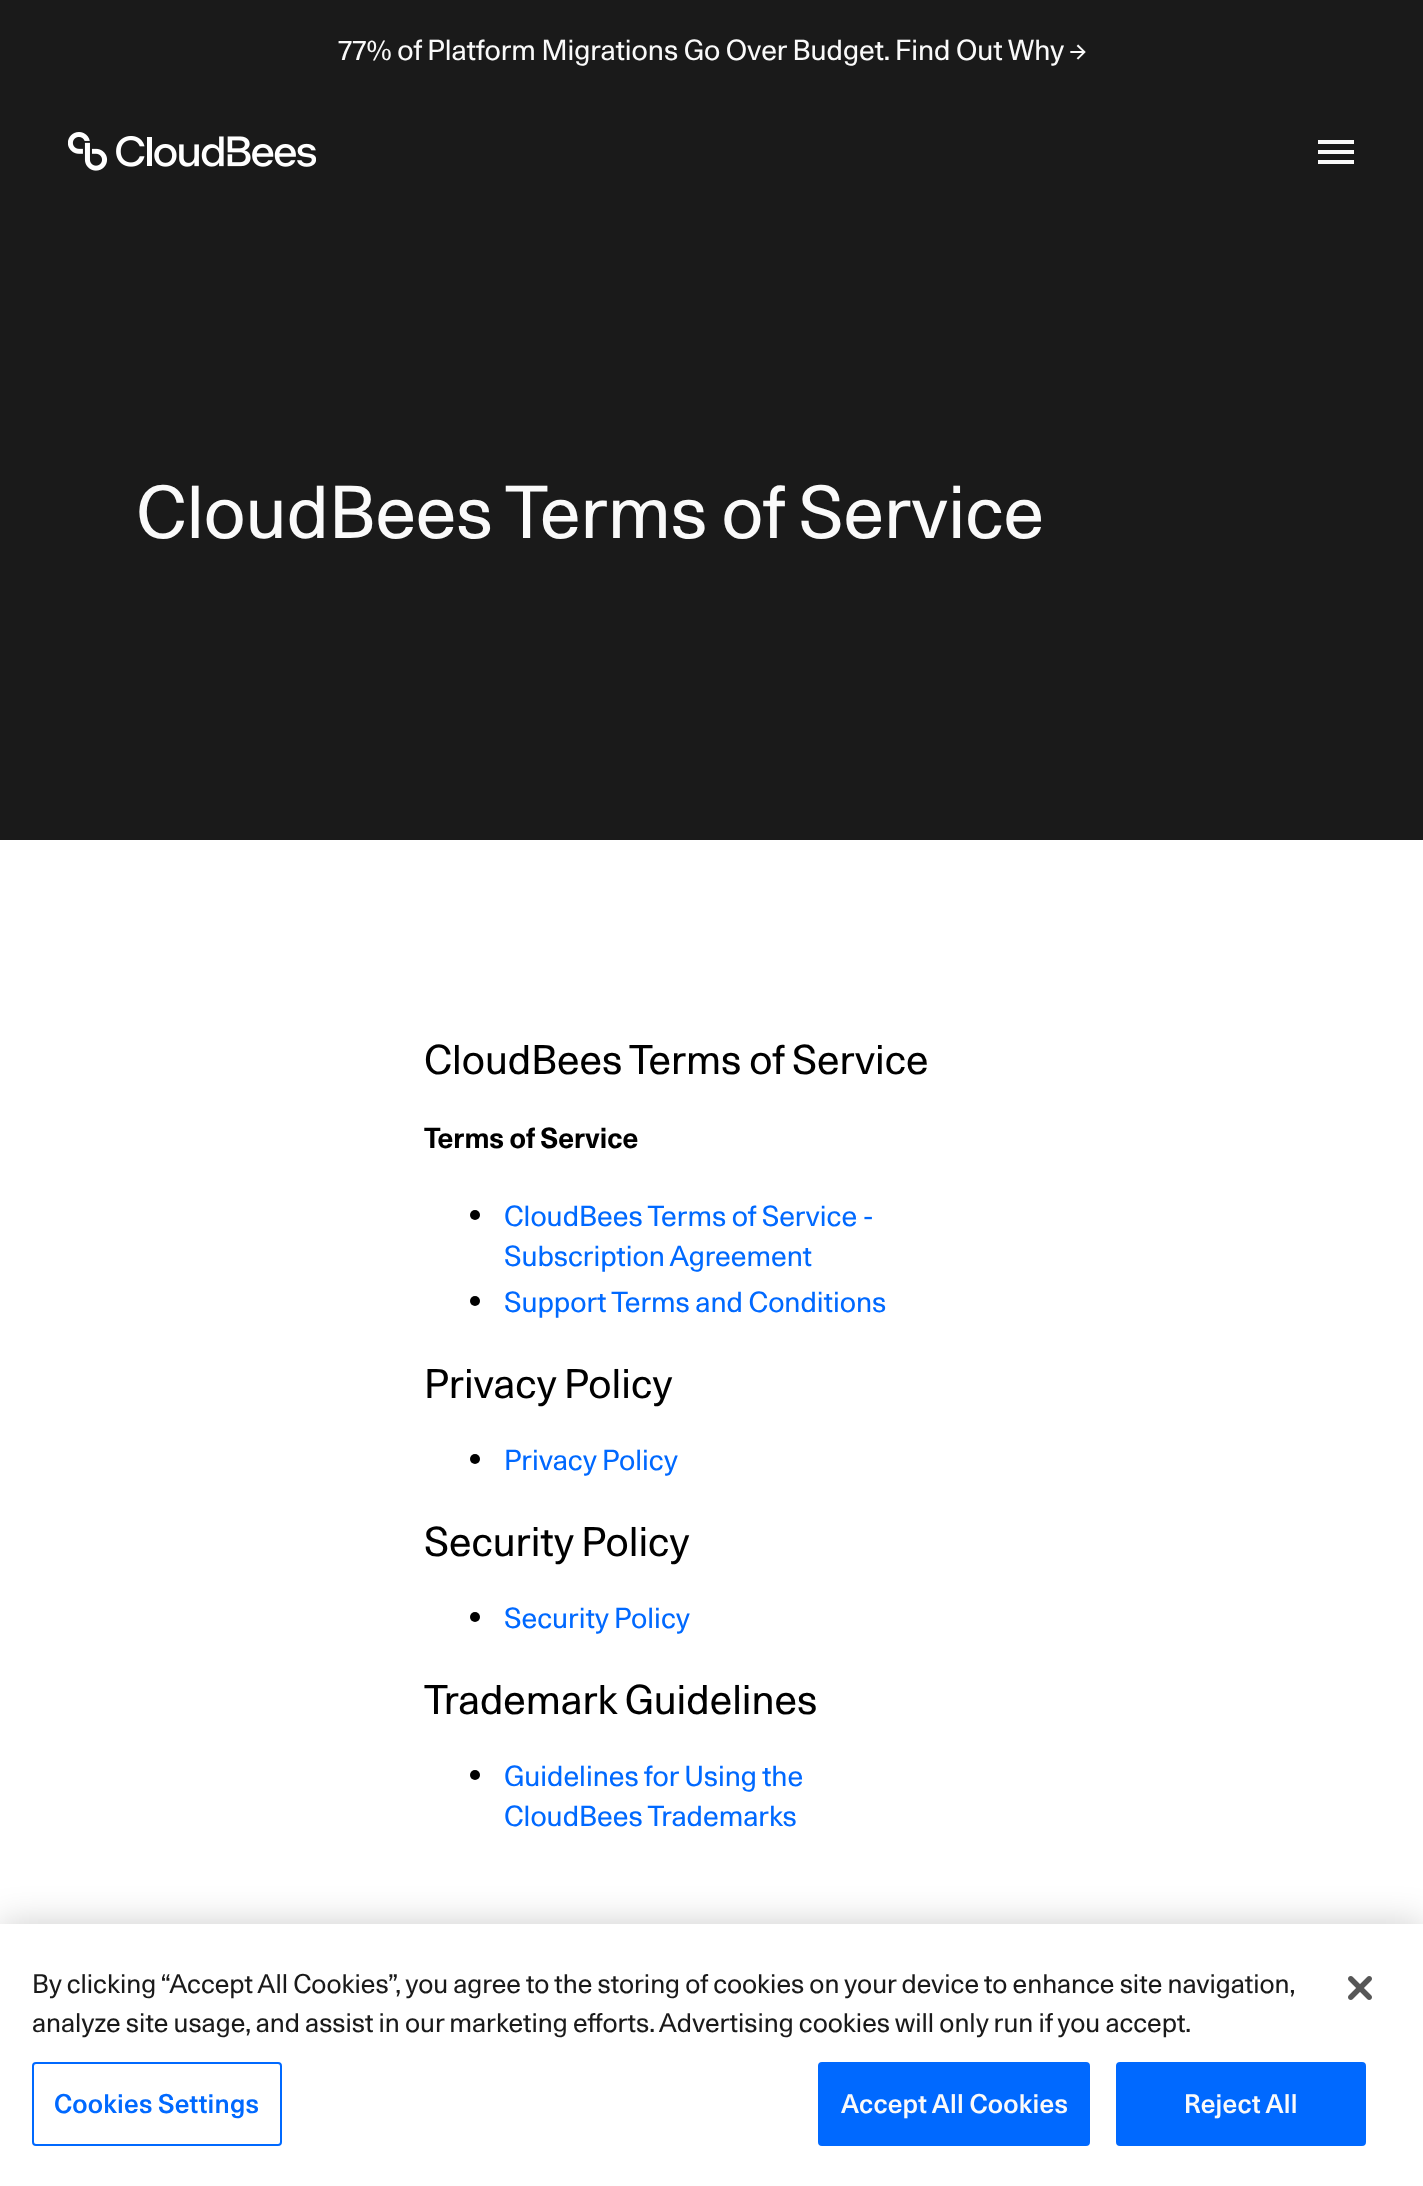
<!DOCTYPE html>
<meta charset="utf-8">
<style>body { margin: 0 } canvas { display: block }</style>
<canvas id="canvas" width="1423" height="2186"></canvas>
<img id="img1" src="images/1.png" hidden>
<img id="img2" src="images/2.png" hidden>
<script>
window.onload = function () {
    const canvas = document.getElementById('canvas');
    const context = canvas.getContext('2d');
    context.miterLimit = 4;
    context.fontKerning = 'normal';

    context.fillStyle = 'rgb(255, 255, 255)';
    context.fillRect(0, 0, 1423, 2186);
    context.fillStyle = 'rgb(26, 26, 26)';
    context.fillRect(0, 0, 1423, 200);
    context.drawImage(document.getElementById('img1'), 68, 132, 248, 39);
    context.fillStyle = 'rgb(250, 250, 250)';
    context.beginPath();
    context.moveTo(1318, 164);
    context.lineTo(1354, 164);
    context.lineTo(1354, 160);
    context.lineTo(1318, 160);
    context.closePath();
    context.moveTo(1318, 154);
    context.lineTo(1354, 154);
    context.lineTo(1354, 150);
    context.lineTo(1318, 150);
    context.closePath();
    context.moveTo(1318, 140);
    context.lineTo(1318, 144);
    context.lineTo(1354, 144);
    context.lineTo(1354, 140);
    context.closePath();
    context.fill();
    context.fillStyle = 'rgb(26, 26, 26)';
    context.fillRect(0, 200, 1423, 640);
    context.fillStyle = 'rgb(0, 0, 0)';
    context.beginPath();
    context.arc(475, 1215, 5, 0, 2 * Math.PI);
    context.fill();
    context.beginPath();
    context.arc(475, 1301, 5, 0, 2 * Math.PI);
    context.fill();
    context.beginPath();
    context.arc(475, 1459, 5, 0, 2 * Math.PI);
    context.fill();
    context.beginPath();
    context.arc(475, 1617, 5, 0, 2 * Math.PI);
    context.fill();
    context.beginPath();
    context.arc(475, 1775, 5, 0, 2 * Math.PI);
    context.fill();
    context.fillStyle = 'rgba(0, 0, 0, 0.2)';
    context.filter = 'blur(18px)';
    context.beginPath();
    context.rect(0, 1924, 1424, 262);
    context.fill();
    context.filter = 'none';
    context.fillStyle = 'rgb(255, 255, 255)';
    context.fillRect(0, 1924, 1423, 262);
    context.beginPath();
    context.roundRect(33, 2063, 248, 82, 3);
    context.strokeStyle = 'rgb(0, 105, 255)';
    context.lineWidth = 2;
    context.stroke();
    context.fillStyle = 'rgb(0, 105, 255)';
    context.beginPath();
    context.roundRect(819, 2063, 270, 82, 3);
    context.fill();
    context.stroke();
    context.beginPath();
    context.roundRect(1117, 2063, 248, 82, 3);
    context.fill();
    context.stroke();
    context.drawImage(document.getElementById('img2'), 1348, 1976, 24, 24);
    context.font = '28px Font';
    context.fillStyle = 'rgb(250, 250, 250)';
    context.fillText('77% of Platform Migrations Go Over Budget. Find Out Why →', 338, 60);
    context.font = '72px Font';
    context.fillText('CloudBees Terms of Service', 136, 538);
    context.font = '40px Font';
    context.fillStyle = 'rgb(0, 0, 0)';
    context.fillText('CloudBees Terms of Service', 424, 1074);
    context.font = 'bold 28px Font';
    context.fillText('Terms of Service', 424, 1148);
    context.font = '28px Font';
    context.fillStyle = 'rgb(0, 105, 255)';
    context.fillText('CloudBees Terms of Service -', 504, 1226);
    context.fillText('Subscription Agreement', 504, 1266);
    context.fillText('Support Terms and Conditions', 504, 1312);
    context.font = '40px Font';
    context.fillStyle = 'rgb(0, 0, 0)';
    context.fillText('Privacy Policy', 424, 1398);
    context.font = '28px Font';
    context.fillStyle = 'rgb(0, 105, 255)';
    context.fillText('Privacy Policy', 504, 1470);
    context.font = '40px Font';
    context.fillStyle = 'rgb(0, 0, 0)';
    context.fillText('Security Policy', 424, 1556);
    context.font = '28px Font';
    context.fillStyle = 'rgb(0, 105, 255)';
    context.fillText('Security Policy', 504, 1628);
    context.font = '40px Font';
    context.fillStyle = 'rgb(0, 0, 0)';
    context.fillText('Trademark Guidelines', 424, 1714);
    context.font = '28px Font';
    context.fillStyle = 'rgb(0, 105, 255)';
    context.fillText('Guidelines for Using the', 504, 1786);
    context.fillText('CloudBees Trademarks', 504, 1826);
    context.font = '26px Font';
    context.fillStyle = 'rgb(26, 26, 26)';
    context.fillText('By clicking “Accept All Cookies”, you agree to the storing of cookies on your device to enhance site navigation,', 32, 1993);
    context.fillText('analyze site usage, and assist in our marketing efforts. Advertising cookies will only run if you accept.', 32, 2032);
    context.letterSpacing = '0.25px';
    context.font = '500 26px Font';
    context.fillStyle = 'rgb(0, 105, 255)';
    context.fillText('Cookies Settings', 54, 2113);
    context.fillStyle = 'rgb(250, 250, 250)';
    context.fillText('Accept All Cookies', 841, 2113);
    context.fillText('Reject All', 1184, 2113);
};
</script>
